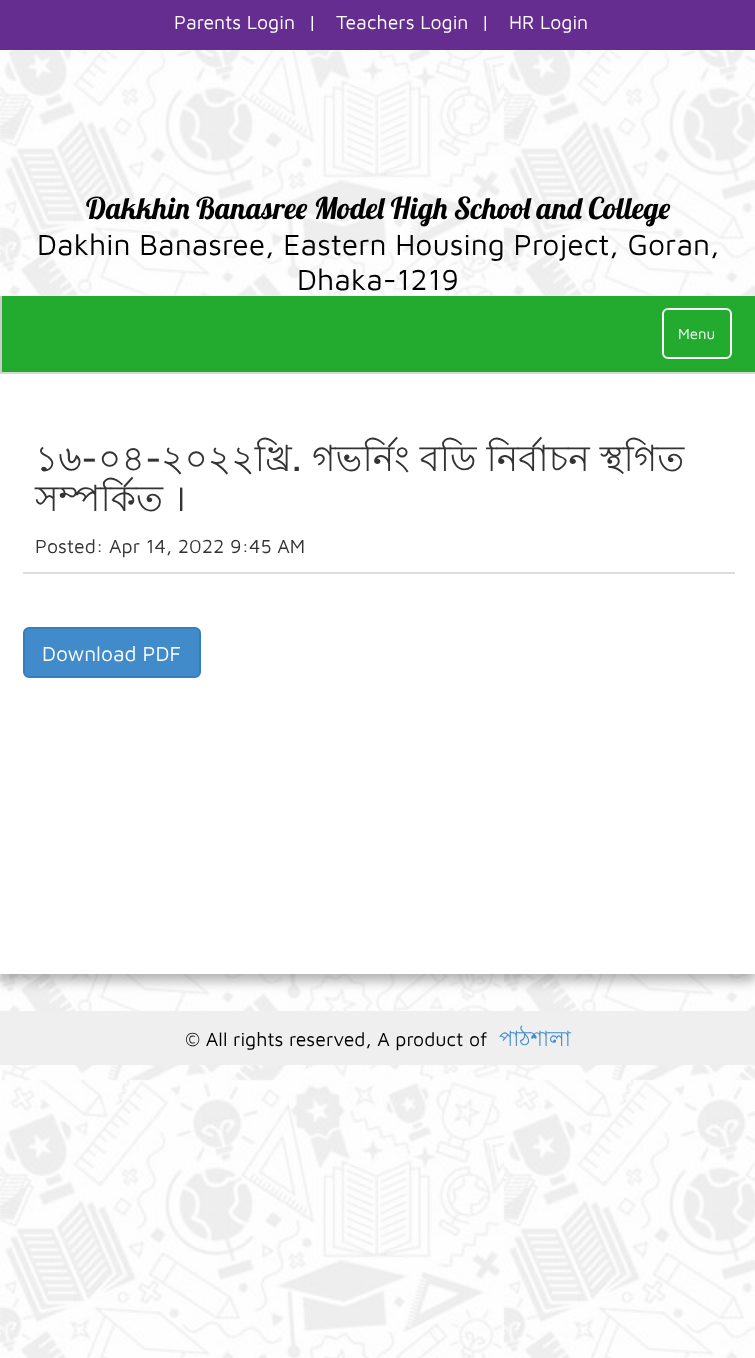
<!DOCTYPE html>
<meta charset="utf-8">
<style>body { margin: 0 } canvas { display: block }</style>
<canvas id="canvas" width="755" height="1358"></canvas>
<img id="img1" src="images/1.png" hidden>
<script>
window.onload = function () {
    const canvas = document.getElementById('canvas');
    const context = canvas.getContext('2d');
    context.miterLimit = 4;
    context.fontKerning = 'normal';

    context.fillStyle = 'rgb(255, 255, 255)';
    context.fillRect(0, 0, 755, 1358);
    context.drawImage(document.getElementById('img1'), 0, 50, 755, 1308);
    context.fillStyle = 'rgb(102, 45, 145)';
    context.fillRect(0, 0, 755, 50);
    context.fillStyle = 'rgb(34, 171, 46)';
    context.fillRect(2, 296, 753, 76);
    context.fillStyle = 'rgb(220, 220, 220)';
    context.fillRect(0, 372, 755, 2);
    context.fillStyle = 'rgb(204, 204, 204)';
    context.fillRect(0, 296, 2, 76);
    context.beginPath();
    context.roundRect(663, 309, 68, 49, 5);
    context.strokeStyle = 'rgb(255, 255, 255)';
    context.lineWidth = 2;
    context.stroke();
    context.fillStyle = 'rgba(0, 0, 0, 0.3)';
    context.filter = 'blur(6px)';
    context.beginPath();
    context.rect(0, 381, 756, 600);
    context.fill();
    context.filter = 'none';
    context.fillStyle = 'rgb(255, 255, 255)';
    context.fillRect(0, 374, 755, 600);
    context.fillStyle = 'rgb(221, 221, 221)';
    context.fillRect(23, 572, 712, 2);
    context.fillStyle = 'rgb(66, 139, 202)';
    context.beginPath();
    context.roundRect(24, 628, 176, 49, 5);
    context.fill();
    context.strokeStyle = 'rgb(53, 126, 189)';
    context.stroke();
    context.fillStyle = 'rgb(239, 239, 239)';
    context.fillRect(0, 1011, 755, 54);
    context.font = '19.5px Maven Pro';
    context.fillStyle = 'rgb(255, 255, 255)';
    context.fillText('Parents Login', 174, 29);
    context.fillText('|', 308, 29);
    context.fillText('Teachers Login', 336, 29);
    context.fillText('|', 481, 29);
    context.fillText('HR Login', 509, 29);
    context.font = '30px Lobster';
    context.fillStyle = 'rgb(0, 0, 0)';
    context.fillText('Dakkhin Banasree Model High School and College', 86, 219);
    context.font = '30px Maven Pro';
    context.fillText('Dakhin Banasree, Eastern Housing Project, Goran,', 37, 255);
    context.fillText('Dhaka-1219', 297, 290);
    context.font = '15px Maven Pro';
    context.fillStyle = 'rgb(255, 255, 255)';
    context.fillText('Menu', 678, 339);
    context.font = '36px Lohit Bengali';
    context.fillStyle = 'rgb(51, 51, 51)';
    context.fillText('১৬', 35, 471);
    context.font = '500 36px Maven Pro';
    context.fillText('-', 81, 471);
    context.font = '36px Lohit Bengali';
    context.fillText('০৪', 98, 471);
    context.font = '500 36px Maven Pro';
    context.fillText('-', 145, 471);
    context.font = '36px Lohit Bengali';
    context.fillText('২০২২খ্রি', 161, 471);
    context.fillText('গভর্নিং বডি নির্বাচন স্থগিত', 312, 471);
    context.font = '500 36px Maven Pro';
    context.fillText('.', 292, 471);
    context.font = '36px Lohit Bengali';
    context.fillText('সম্পর্কিত ।', 35, 511);
    context.font = '19.5px Maven Pro';
    context.fillText('Posted: Apr 14, 2022 9:45 AM', 35, 553);
    context.font = '21px Maven Pro';
    context.fillStyle = 'rgb(255, 255, 255)';
    context.fillText('Download PDF', 42, 661);
    context.font = '19.5px Maven Pro';
    context.fillStyle = 'rgb(0, 0, 0)';
    context.fillText('© All rights reserved, A product of', 185, 1046);
    context.font = '21px Lohit Bengali';
    context.fillStyle = 'rgb(66, 139, 202)';
    context.fillText('পাঠশালা', 499, 1046);
};
</script>
